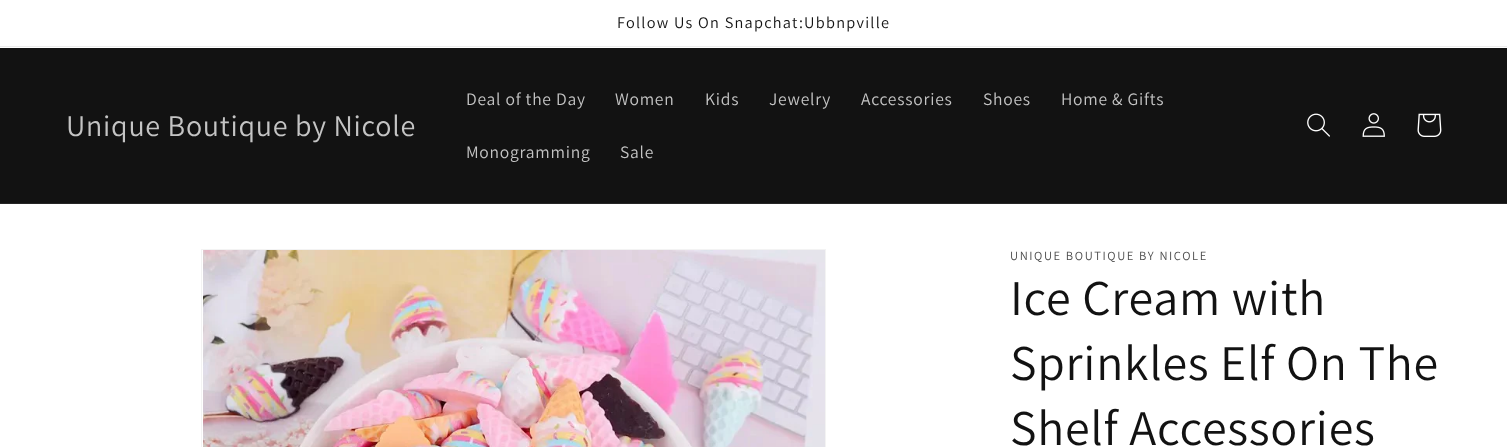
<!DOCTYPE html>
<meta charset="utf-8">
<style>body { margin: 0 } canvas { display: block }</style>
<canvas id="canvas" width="1507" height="447"></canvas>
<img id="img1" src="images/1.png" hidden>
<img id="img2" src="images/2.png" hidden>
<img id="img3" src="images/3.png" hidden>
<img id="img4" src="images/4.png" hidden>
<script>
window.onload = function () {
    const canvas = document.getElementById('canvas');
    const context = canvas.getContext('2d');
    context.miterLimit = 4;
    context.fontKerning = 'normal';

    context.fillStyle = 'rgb(255, 255, 255)';
    context.fillRect(0, 0, 1507, 447);
    context.fillStyle = 'rgb(236, 236, 236)';
    context.fillRect(0, 46, 1507, 1);
    context.fillStyle = 'rgb(18, 18, 18)';
    context.fillRect(0, 48, 1507, 155);
    context.fillStyle = 'rgb(37, 37, 37)';
    context.fillRect(0, 203, 1507, 1);
    context.drawImage(document.getElementById('img1'), 1307, 113, 23, 24);
    context.drawImage(document.getElementById('img2'), 1362, 113, 23, 24);
    context.drawImage(document.getElementById('img3'), 1417, 113, 25, 24);
    context.strokeStyle = 'rgb(243, 243, 243)';
    context.strokeRect(201.5, 249.5, 624, 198);
    context.drawImage(document.getElementById('img4'), 203, 250, 622, 197);
    context.letterSpacing = '1.25px';
    context.font = '16.25px Assistant';
    context.fillStyle = 'rgb(18, 18, 18)';
    context.fillText('Follow Us On Snapchat:Ubbnpville', 617, 28);
    context.letterSpacing = '0.75px';
    context.font = '30px Assistant';
    context.fillStyle = 'rgb(196, 196, 196)';
    context.fillText('Unique Boutique by Nicole', 66, 136);
    context.font = '17.5px Assistant';
    context.fillText('Deal of the Day', 466, 105);
    context.fillText('Women', 615, 105);
    context.fillText('Kids', 705, 105);
    context.fillText('Jewelry', 769, 105);
    context.fillText('Accessories', 861, 105);
    context.fillText('Shoes', 983, 105);
    context.fillText('Home & Gifts', 1061, 105);
    context.fillText('Monogramming', 466, 158);
    context.fillText('Sale', 620, 158);
    context.letterSpacing = '1.6px';
    context.font = '12.5px Assistant';
    context.fillStyle = 'rgb(77, 77, 77)';
    context.fillText('UNIQUE BOUTIQUE BY NICOLE', 1010, 260);
    context.letterSpacing = '0.75px';
    context.font = '50px Assistant';
    context.fillStyle = 'rgb(18, 18, 18)';
    context.fillText('Ice Cream with', 1010, 315);
    context.fillText('Sprinkles Elf On The', 1010, 380);
    context.fillText('Shelf Accessories', 1010, 445);
};
</script>
